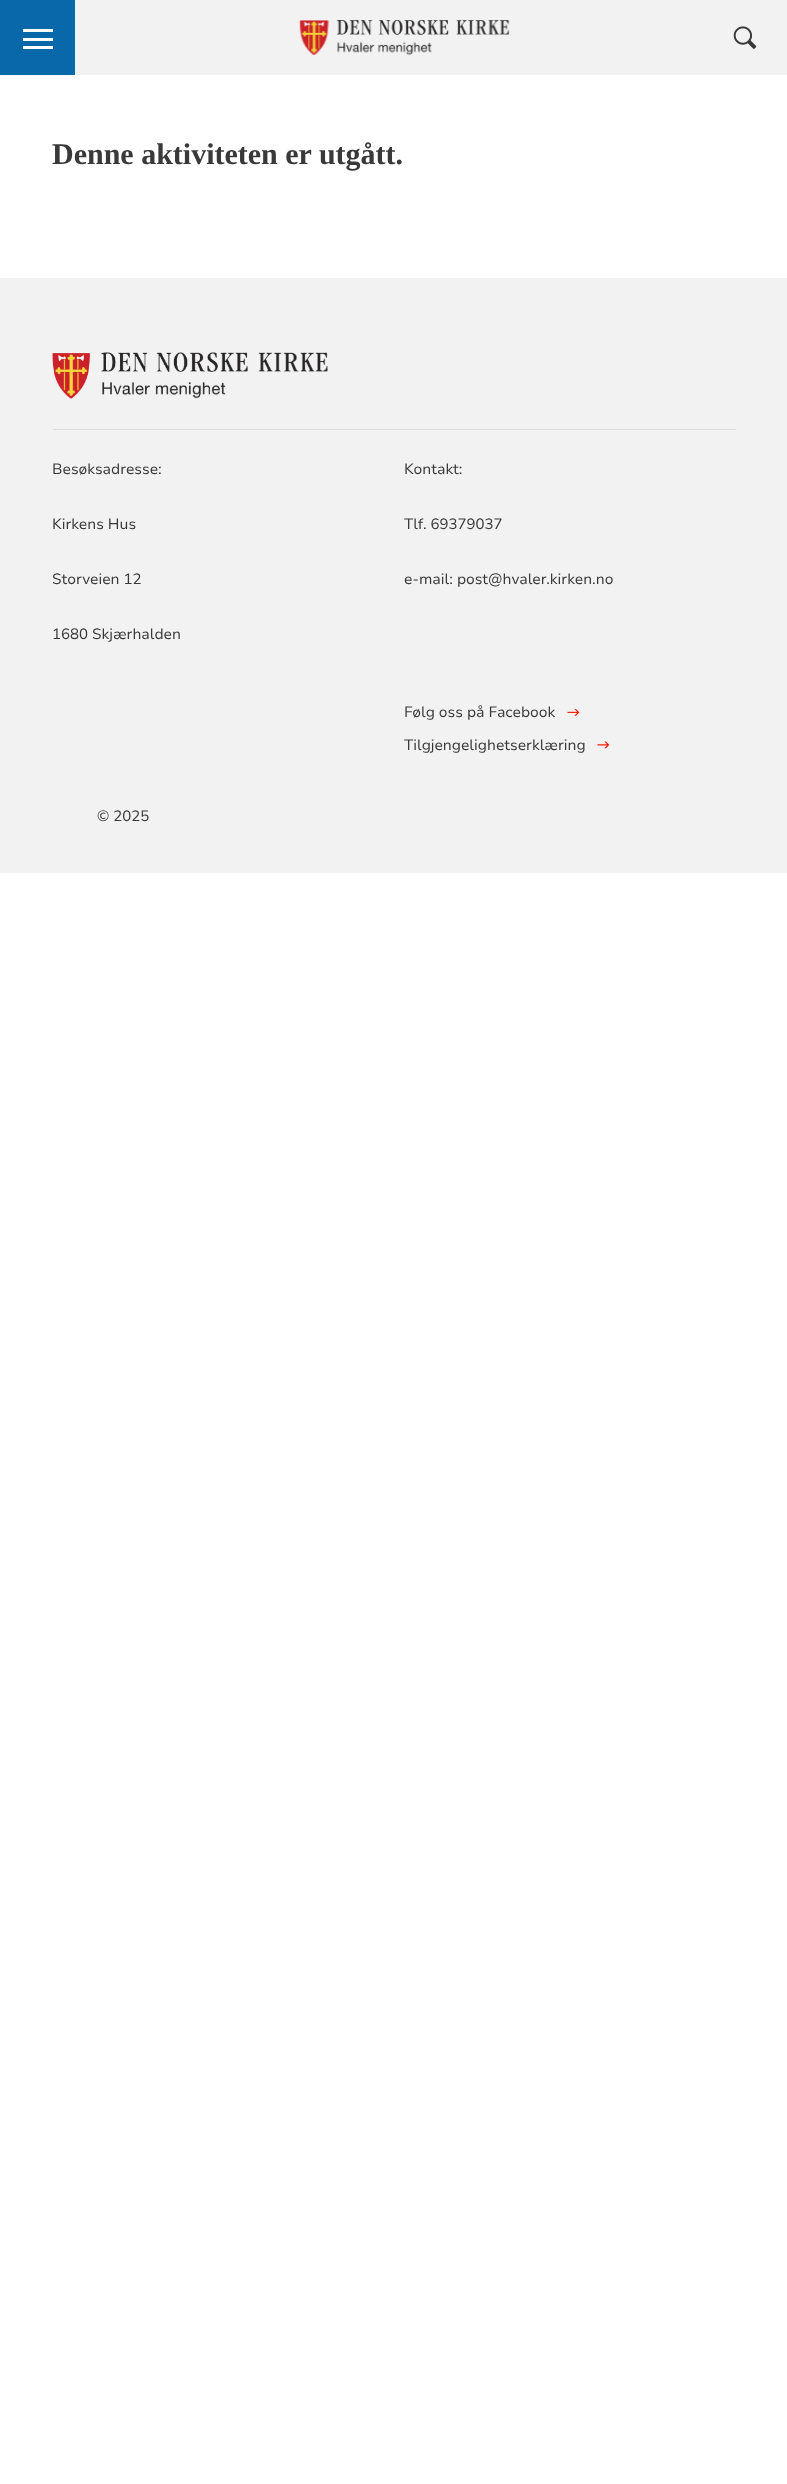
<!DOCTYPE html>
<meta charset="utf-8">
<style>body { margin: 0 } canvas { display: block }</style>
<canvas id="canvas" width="787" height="2484"></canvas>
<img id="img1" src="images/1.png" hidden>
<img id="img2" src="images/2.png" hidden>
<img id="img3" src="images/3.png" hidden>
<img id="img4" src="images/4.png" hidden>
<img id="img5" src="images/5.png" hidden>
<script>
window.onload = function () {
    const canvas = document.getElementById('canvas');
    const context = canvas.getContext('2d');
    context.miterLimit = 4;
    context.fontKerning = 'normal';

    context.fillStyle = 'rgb(255, 255, 255)';
    context.fillRect(0, 0, 787, 2484);
    context.fillStyle = 'rgb(242, 242, 242)';
    context.fillRect(75, 0, 712, 75);
    context.fillStyle = 'rgb(9, 104, 170)';
    context.fillRect(0, 0, 75, 75);
    context.fillStyle = 'rgb(255, 255, 255)';
    context.fillRect(23, 29, 30, 3);
    context.fillRect(23, 38, 30, 3);
    context.fillRect(23, 46, 30, 3);
    context.drawImage(document.getElementById('img1'), 299, 20, 211, 35);
    context.drawImage(document.getElementById('img2'), 733, 26, 24, 23);
    context.fillStyle = 'rgb(242, 242, 242)';
    context.fillRect(0, 278, 787, 595);
    context.fillStyle = 'rgb(222, 222, 222)';
    context.fillRect(53, 429, 683, 1);
    context.drawImage(document.getElementById('img3'), 52, 352, 276, 47);
    context.drawImage(document.getElementById('img4'), 567, 709, 13, 7);
    context.drawImage(document.getElementById('img5'), 597, 741, 13, 8);
    context.font = 'bold 30px Liberation Serif';
    context.fillStyle = 'rgb(57, 57, 57)';
    context.fillText('Denne aktiviteten er utgått.', 52, 164);
    context.font = '15px Nunito Sans';
    context.fillText('Besøksadresse:', 52, 474);
    context.fillText('Kirkens Hus', 52, 529);
    context.fillText('Storveien 12', 52, 584);
    context.fillText('1680 Skjærhalden', 52, 639);
    context.fillText('Kontakt:', 404, 474);
    context.fillText('Tlf. 69379037', 404, 529);
    context.fillText('e-mail: post@hvaler.kirken.no', 404, 584);
    context.fillText('Følg oss på Facebook', 404, 717);
    context.fillText('Tilgjengelighetserklæring', 404, 750);
    context.fillText('© 2025', 97, 821);
};
</script>
